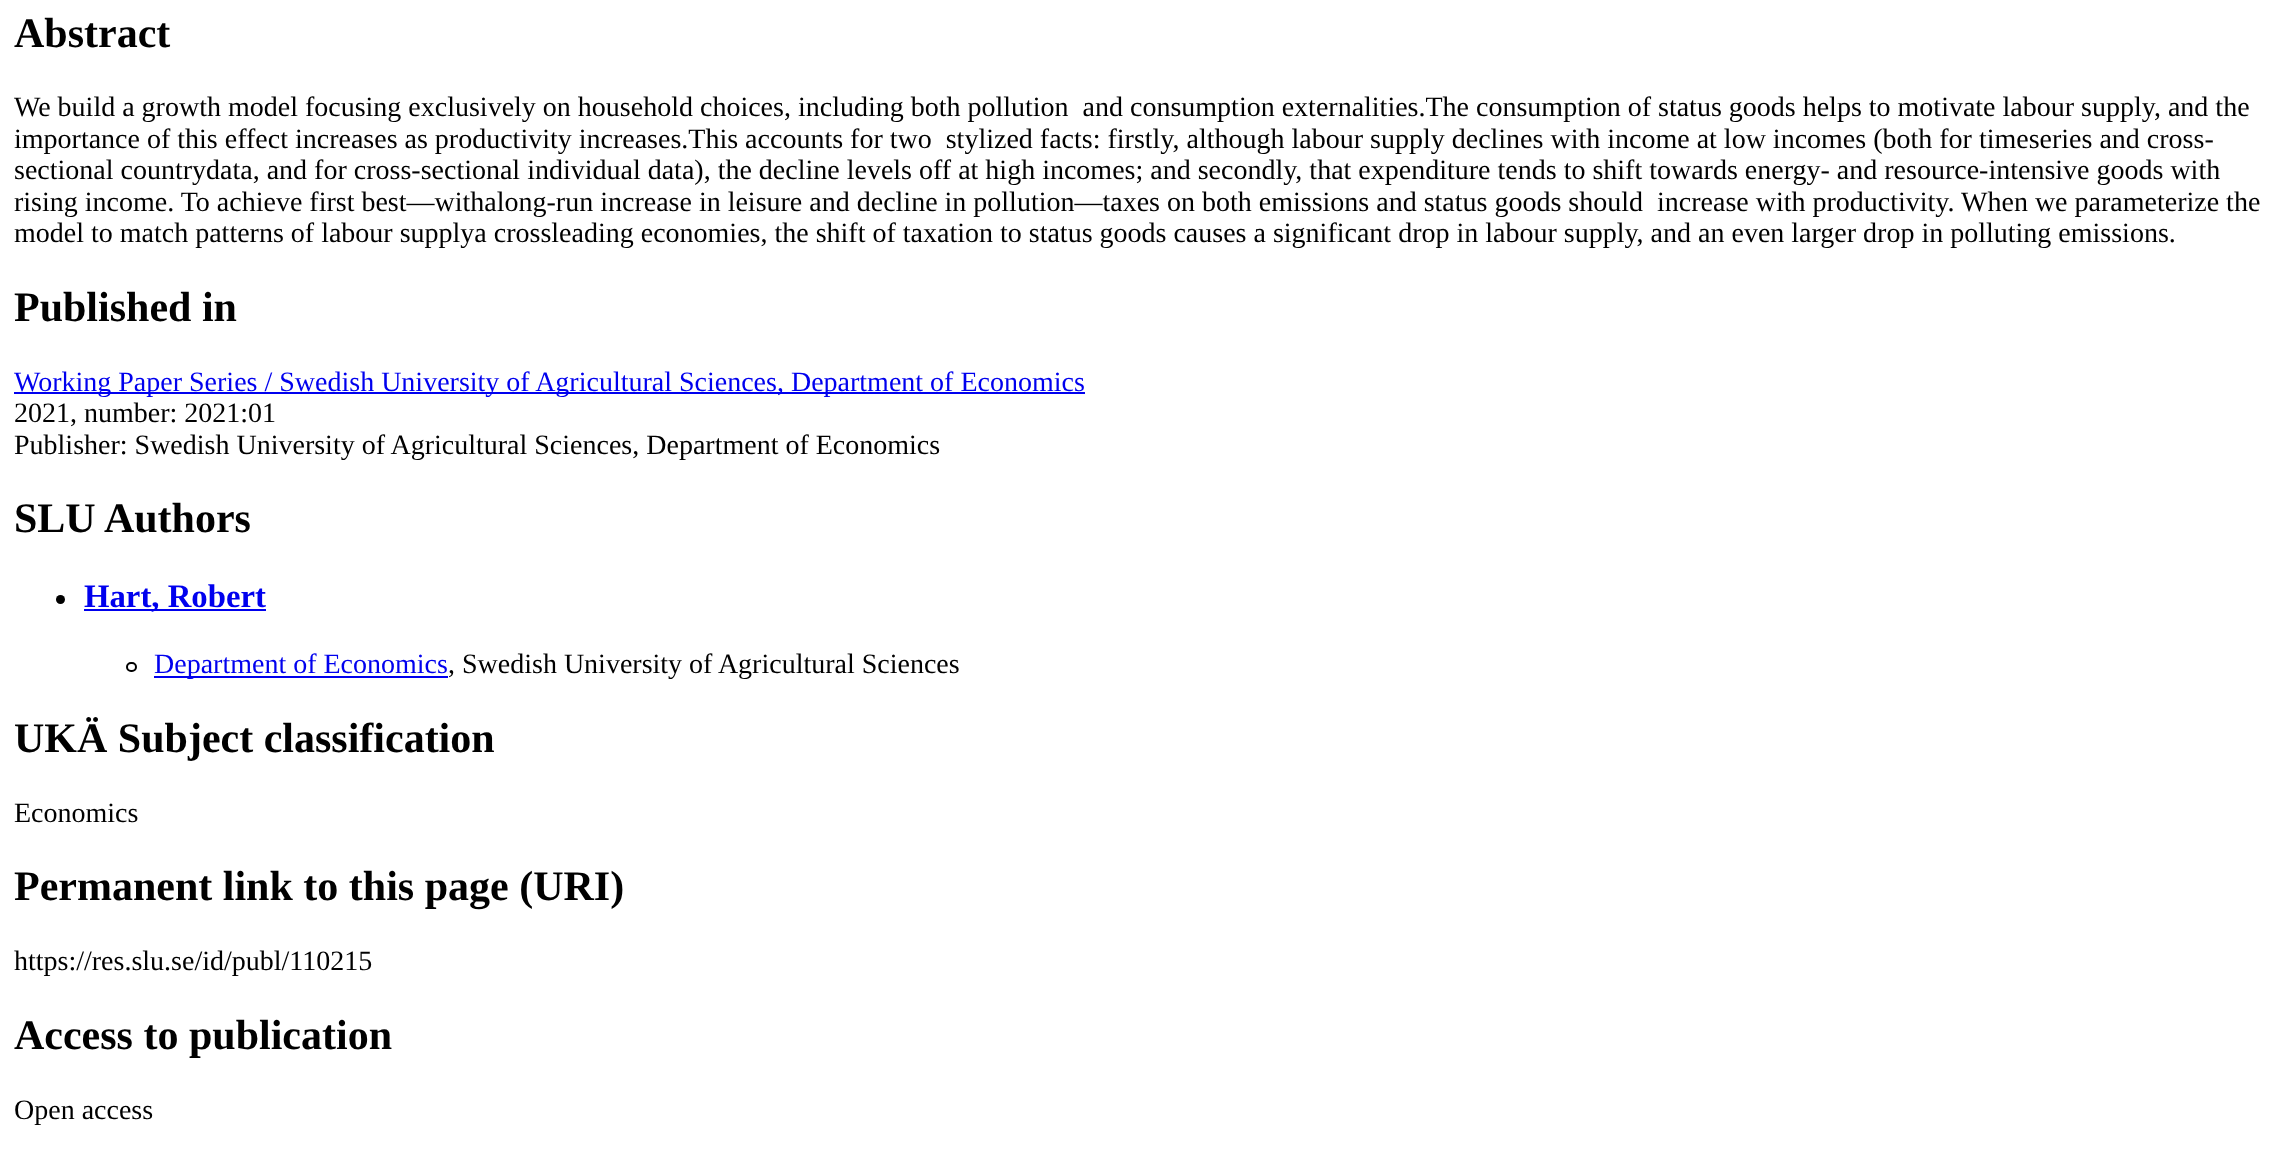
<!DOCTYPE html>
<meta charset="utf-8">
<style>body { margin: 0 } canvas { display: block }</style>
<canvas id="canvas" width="2290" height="1149"></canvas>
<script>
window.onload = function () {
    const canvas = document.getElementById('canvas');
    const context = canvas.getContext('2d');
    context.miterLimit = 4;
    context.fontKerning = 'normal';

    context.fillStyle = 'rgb(255, 255, 255)';
    context.fillRect(0, 0, 2290, 1149);
    context.fillStyle = 'rgb(0, 0, 238)';
    context.fillRect(14, 392, 1071, 2);
    context.fillStyle = 'rgb(0, 0, 0)';
    context.beginPath();
    context.arc(60.5, 599.5, 4.5, 0, 2 * Math.PI);
    context.fill();
    context.fillStyle = 'rgb(0, 0, 238)';
    context.fillRect(84, 609, 182, 2);
    context.beginPath();
    context.roundRect(127, 663, 9, 8, 4);
    context.strokeStyle = 'rgb(0, 0, 0)';
    context.lineWidth = 2;
    context.stroke();
    context.fillRect(154, 676, 294, 2);
    context.font = 'bold 42px Liberation Serif';
    context.fillStyle = 'rgb(0, 0, 0)';
    context.fillText('Abstract', 14, 47);
    context.font = '28px Liberation Serif';
    context.fillText('We build a growth model focusing exclusively on household choices, including both pollution  and consumption externalities.The consumption of status goods helps to motivate labour supply, and the', 14, 116);
    context.fillText('importance of this effect increases as productivity increases.This accounts for two  stylized facts: firstly, although labour supply declines with income at low incomes (both for timeseries and cross-', 14, 148);
    context.fillText('sectional countrydata, and for cross-sectional individual data), the decline levels off at high incomes; and secondly, that expenditure tends to shift towards energy- and resource-intensive goods with', 14, 179);
    context.fillText('rising income. To achieve first best—withalong-run increase in leisure and decline in pollution—taxes on both emissions and status goods should  increase with productivity. When we parameterize the', 14, 211);
    context.fillText('model to match patterns of labour supplya crossleading economies, the shift of taxation to status goods causes a significant drop in labour supply, and an even larger drop in polluting emissions.', 14, 242);
    context.font = 'bold 42px Liberation Serif';
    context.fillText('Published in', 14, 321);
    context.font = '28px Liberation Serif';
    context.fillStyle = 'rgb(0, 0, 238)';
    context.fillText('Working Paper Series / Swedish University of Agricultural Sciences, Department of Economics', 14, 391);
    context.fillStyle = 'rgb(0, 0, 0)';
    context.fillText('2021, number: 2021:01', 14, 422);
    context.fillText('Publisher: Swedish University of Agricultural Sciences, Department of Economics', 14, 454);
    context.font = 'bold 42px Liberation Serif';
    context.fillText('SLU Authors', 14, 532);
    context.font = 'bold 32.75px Liberation Serif';
    context.fillStyle = 'rgb(0, 0, 238)';
    context.fillText('Hart, Robert', 84, 607);
    context.font = '28px Liberation Serif';
    context.fillText('Department of Economics', 154, 673);
    context.fillStyle = 'rgb(0, 0, 0)';
    context.fillText(', Swedish University of Agricultural Sciences', 448, 673);
    context.font = 'bold 42px Liberation Serif';
    context.fillText('UKÄ Subject classification', 14, 752);
    context.font = '28px Liberation Serif';
    context.fillText('Economics', 14, 822);
    context.font = 'bold 42px Liberation Serif';
    context.fillText('Permanent link to this page (URI)', 14, 900);
    context.font = '28px Liberation Serif';
    context.fillText('https://res.slu.se/id/publ/110215', 14, 970);
    context.font = 'bold 42px Liberation Serif';
    context.fillText('Access to publication', 14, 1049);
    context.font = '28px Liberation Serif';
    context.fillText('Open access', 14, 1119);
};
</script>
